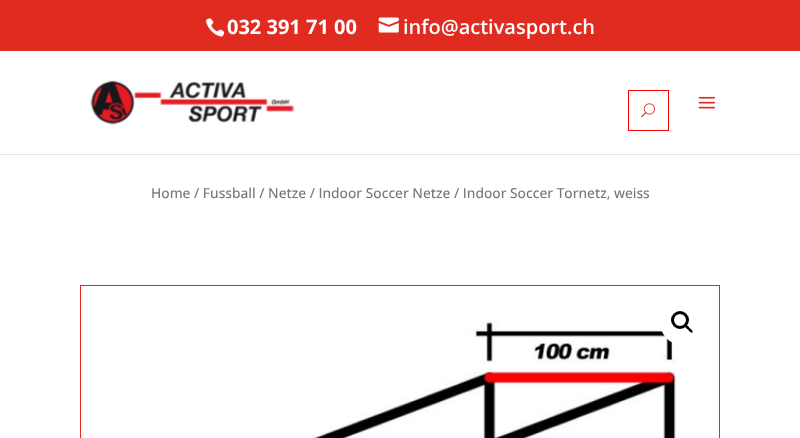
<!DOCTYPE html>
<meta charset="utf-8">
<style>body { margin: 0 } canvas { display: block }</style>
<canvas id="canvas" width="800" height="438"></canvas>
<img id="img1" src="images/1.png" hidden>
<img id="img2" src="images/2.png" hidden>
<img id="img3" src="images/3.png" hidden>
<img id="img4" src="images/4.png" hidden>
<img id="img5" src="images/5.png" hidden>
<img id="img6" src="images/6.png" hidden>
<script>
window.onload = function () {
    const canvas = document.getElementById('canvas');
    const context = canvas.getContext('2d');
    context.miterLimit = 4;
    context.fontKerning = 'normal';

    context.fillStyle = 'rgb(255, 255, 255)';
    context.fillRect(0, 0, 800, 438);
    context.fillStyle = 'rgb(224, 43, 32)';
    context.fillRect(0, 0, 800, 51);
    context.drawImage(document.getElementById('img1'), 205, 18, 20, 19);
    context.drawImage(document.getElementById('img2'), 378, 17, 21, 16);
    context.fillStyle = 'rgb(230, 230, 230)';
    context.fillRect(0, 154, 800, 1);
    context.drawImage(document.getElementById('img3'), 90, 80, 205, 45);
    context.strokeStyle = 'rgb(255, 0, 0)';
    context.strokeRect(628.5, 90.5, 40, 40);
    context.drawImage(document.getElementById('img4'), 641, 103, 14, 15);
    context.drawImage(document.getElementById('img5'), 698, 96, 17, 13);
    context.strokeStyle = 'rgb(224, 43, 32)';
    context.strokeRect(80.5, 285.5, 639, 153);
    context.drawImage(document.getElementById('img6'), 313, 320, 369, 118);
    context.fillStyle = 'rgb(255, 255, 255)';
    context.beginPath();
    context.arc(682.5, 322.5, 22.5, 0, 2 * Math.PI);
    context.fill();
    context.beginPath();
    context.arc(680, 320, 7.5, 0, 2 * Math.PI);
    context.strokeStyle = 'rgb(0, 0, 0)';
    context.lineWidth = 3;
    context.stroke();
    context.fillStyle = 'rgb(0, 0, 0)';
    context.beginPath();
    context.moveTo(685, 325.5);
    context.bezierCurveTo(686.5, 324, 689, 327, 689.5, 328);
    context.bezierCurveTo(690.5, 328.5, 693.5, 331, 692.5, 332.5);
    context.bezierCurveTo(691, 333.5, 688.5, 330.5, 688, 329.5);
    context.bezierCurveTo(687, 329, 684, 326.5, 685, 325.5);
    context.closePath();
    context.fill();
    context.font = 'bold 20px Open Sans';
    context.fillStyle = 'rgb(255, 255, 255)';
    context.fillText('032 391 71 00', 227, 34);
    context.font = '600 20px Open Sans';
    context.fillText('info@activasport.ch', 403, 34);
    context.font = '500 13.8px Open Sans';
    context.fillStyle = 'rgb(118, 118, 118)';
    context.fillText('Home / Fussball / Netze / Indoor Soccer Netze / Indoor Soccer Tornetz, weiss', 151, 198);
};
</script>
